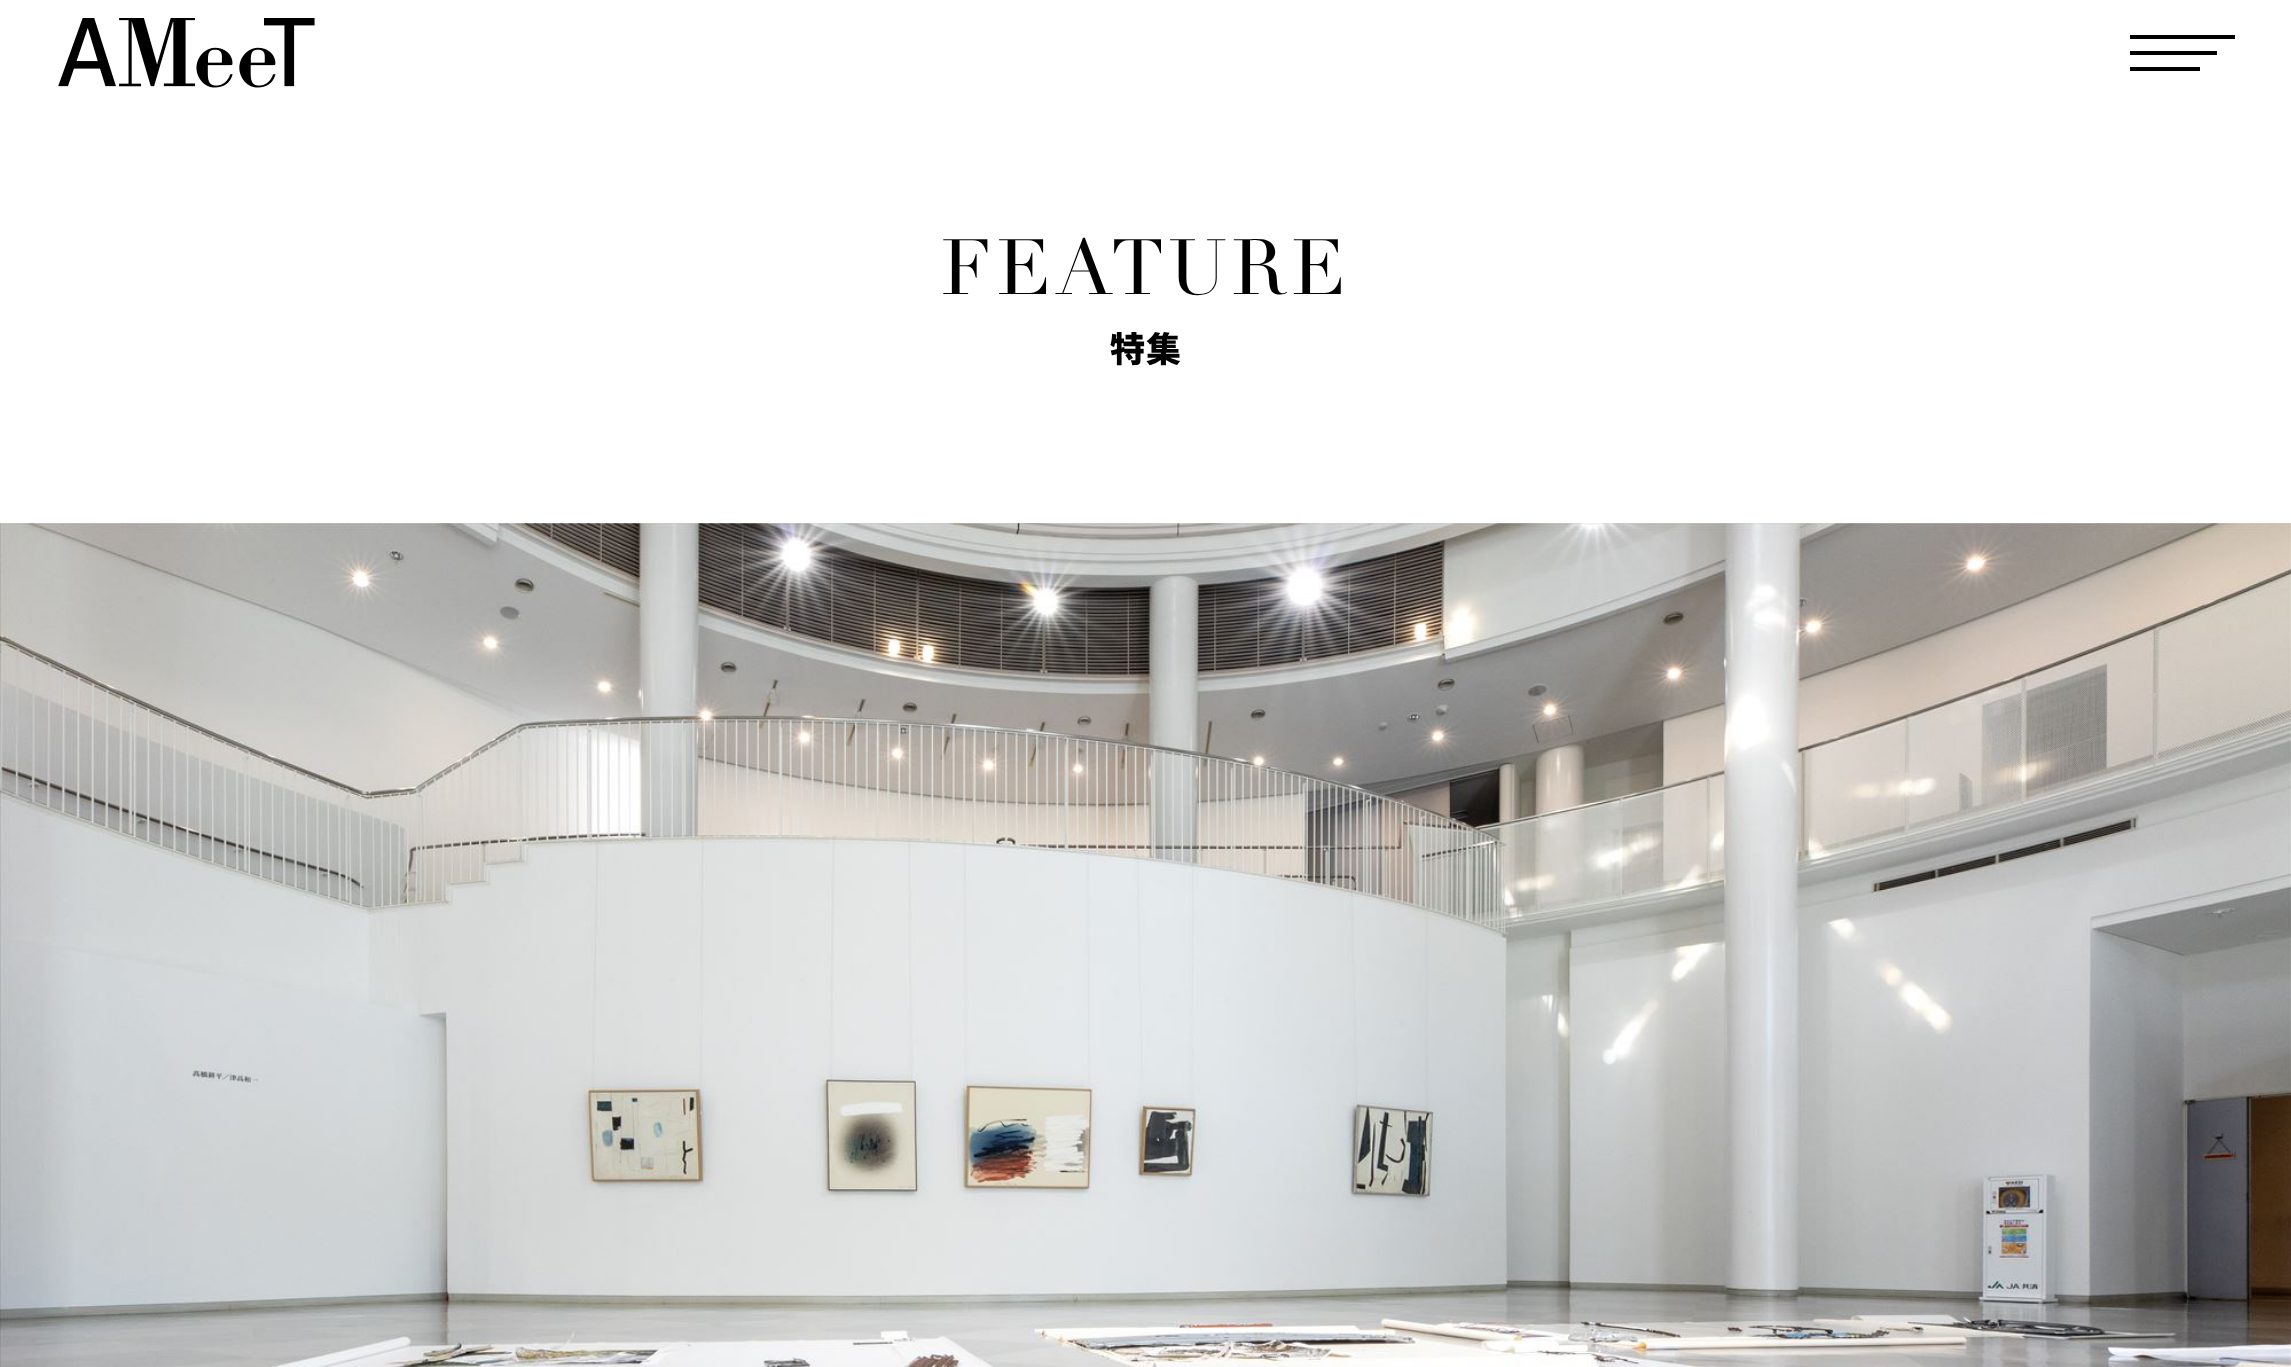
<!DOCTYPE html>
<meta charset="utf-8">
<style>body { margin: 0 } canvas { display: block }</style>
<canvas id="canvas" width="2291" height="1367"></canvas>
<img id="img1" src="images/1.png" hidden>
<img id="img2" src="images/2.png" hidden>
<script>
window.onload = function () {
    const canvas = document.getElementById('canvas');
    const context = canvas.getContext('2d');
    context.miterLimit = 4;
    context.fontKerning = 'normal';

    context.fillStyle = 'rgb(255, 255, 255)';
    context.fillRect(0, 0, 2291, 1367);
    context.drawImage(document.getElementById('img1'), 58, 18, 257, 70);
    context.fillStyle = 'rgb(0, 0, 0)';
    context.fillRect(2130, 35, 105, 4);
    context.fillRect(2130, 51, 87, 4);
    context.fillRect(2130, 67, 70, 4);
    context.drawImage(document.getElementById('img2'), 0, 523, 2291, 844);
    context.letterSpacing = '4.5px';
    context.font = '77px Didot';
    context.fillText('FEATURE', 941, 294);
    context.letterSpacing = '1px';
    context.font = '900 35px Noto Sans JP';
    context.fillText('特集', 1110, 362);
};
</script>
